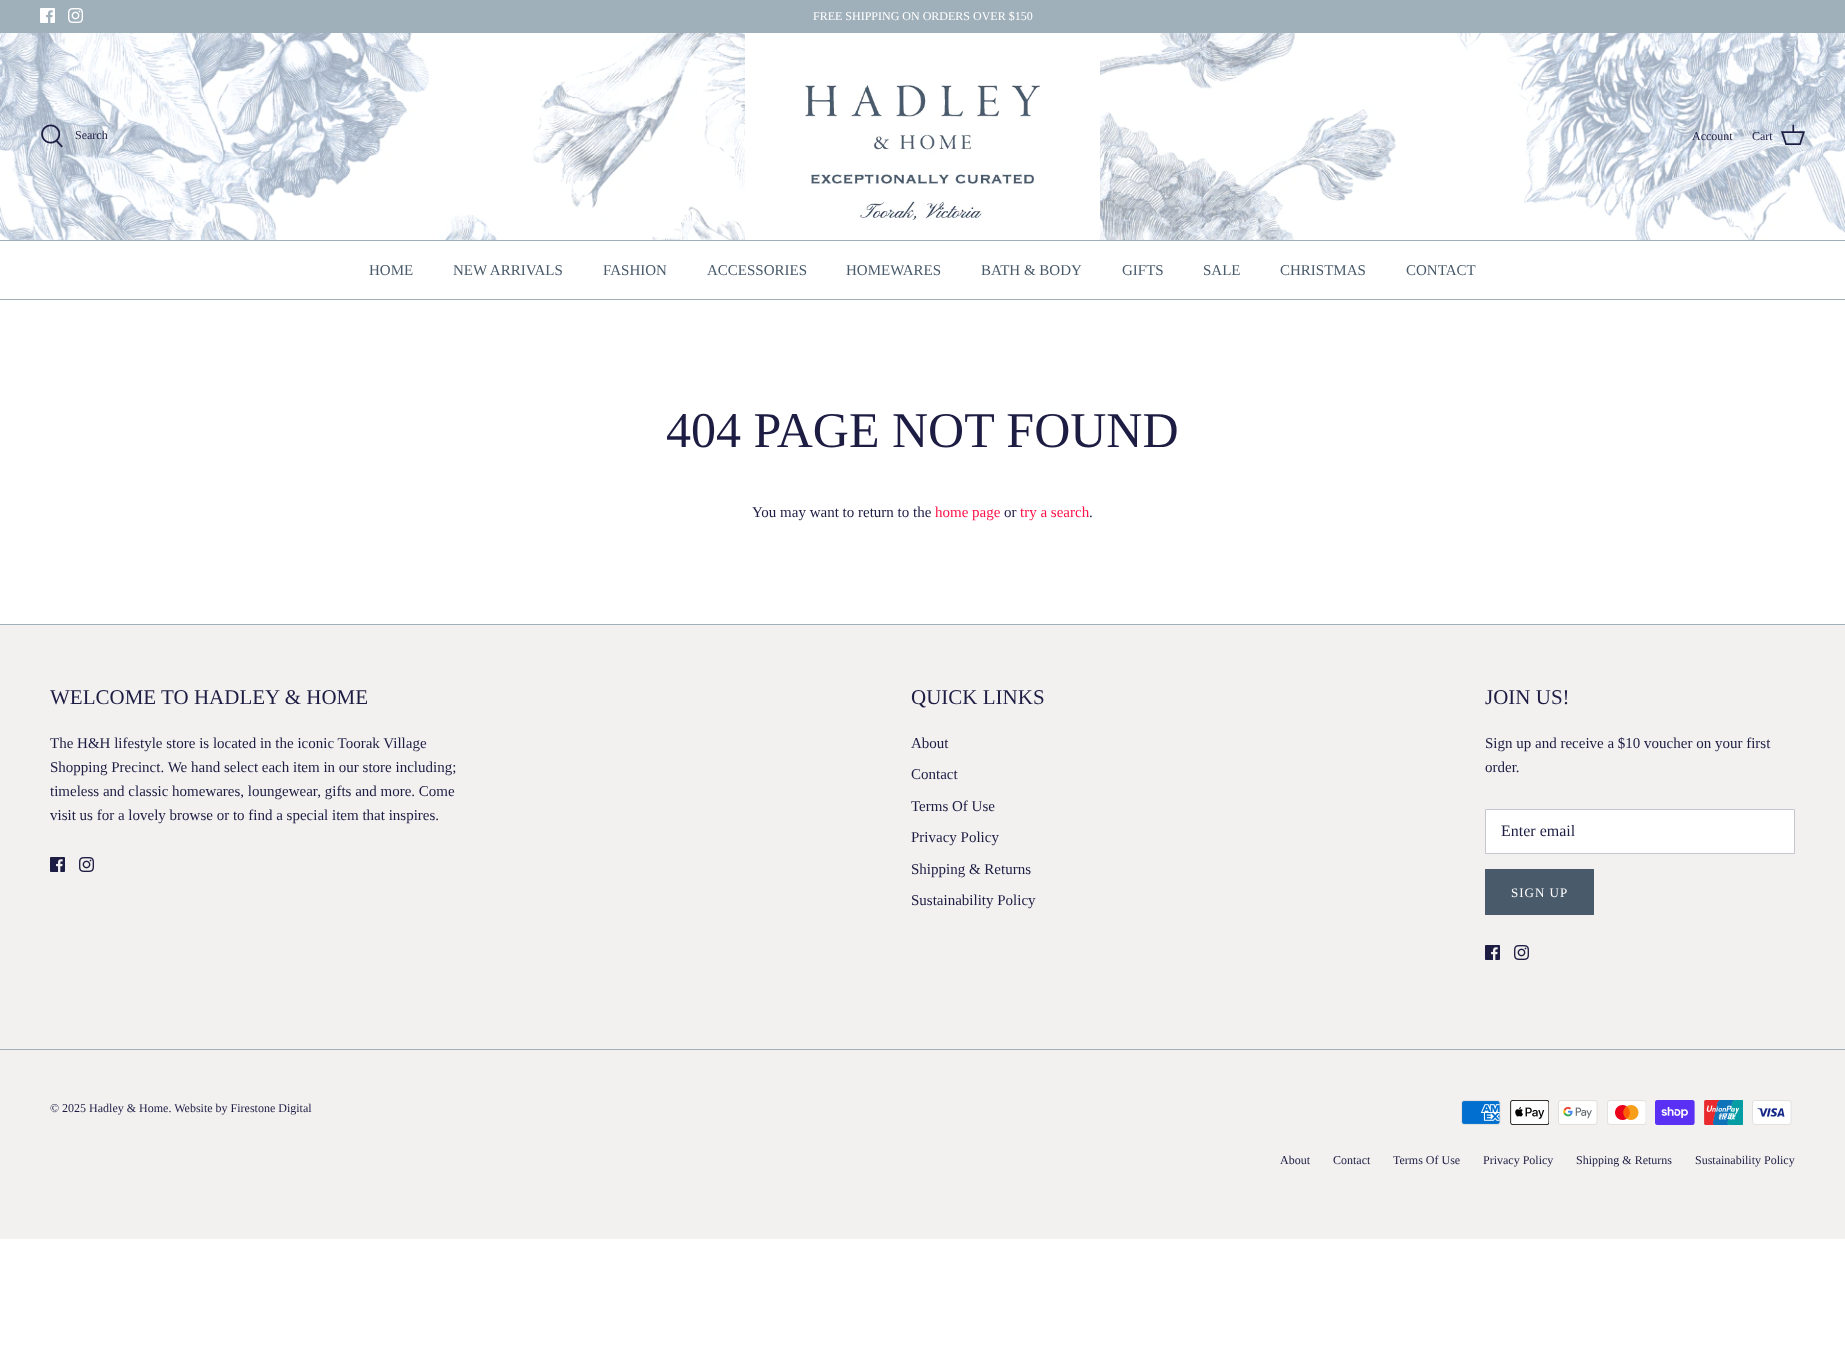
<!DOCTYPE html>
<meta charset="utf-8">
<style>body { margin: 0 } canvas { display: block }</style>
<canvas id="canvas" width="1845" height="1359"></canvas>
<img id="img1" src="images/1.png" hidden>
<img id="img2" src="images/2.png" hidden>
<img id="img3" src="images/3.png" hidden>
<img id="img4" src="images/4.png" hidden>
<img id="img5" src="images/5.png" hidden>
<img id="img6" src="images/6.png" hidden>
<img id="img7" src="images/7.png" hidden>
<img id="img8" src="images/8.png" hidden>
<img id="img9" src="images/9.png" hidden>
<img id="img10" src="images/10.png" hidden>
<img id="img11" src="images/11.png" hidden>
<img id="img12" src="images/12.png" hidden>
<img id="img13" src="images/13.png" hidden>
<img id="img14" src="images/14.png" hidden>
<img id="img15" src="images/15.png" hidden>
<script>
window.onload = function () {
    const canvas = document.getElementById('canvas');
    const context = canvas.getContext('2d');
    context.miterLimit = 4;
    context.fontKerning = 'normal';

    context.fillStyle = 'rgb(255, 255, 255)';
    context.fillRect(0, 0, 1845, 1359);
    context.fillStyle = 'rgb(160, 176, 186)';
    context.fillRect(0, 0, 1845, 33);
    context.drawImage(document.getElementById('img1'), 40, 8, 15, 15);
    context.drawImage(document.getElementById('img2'), 68, 8, 15, 15);
    context.drawImage(document.getElementById('img3'), 0, 33, 1845, 207);
    context.fillRect(0, 240, 1845, 1);
    context.drawImage(document.getElementById('img4'), 41, 124, 22, 24);
    context.fillStyle = 'rgb(255, 255, 255)';
    context.fillRect(745, 33, 355, 207);
    context.drawImage(document.getElementById('img5'), 805, 85, 235, 135);
    context.drawImage(document.getElementById('img6'), 1781, 124, 24, 21);
    context.fillStyle = 'rgb(160, 176, 186)';
    context.fillRect(0, 299, 1845, 1);
    context.fillStyle = 'rgb(242, 241, 239)';
    context.fillRect(0, 625, 1845, 614);
    context.fillStyle = 'rgb(160, 176, 186)';
    context.fillRect(0, 624, 1845, 1);
    context.drawImage(document.getElementById('img7'), 50, 857, 15, 15);
    context.drawImage(document.getElementById('img8'), 79, 857, 15, 15);
    context.fillStyle = 'rgb(255, 255, 255)';
    context.beginPath();
    context.rect(1485.5, 809.5, 309, 44);
    context.fill();
    context.strokeStyle = 'rgb(199, 198, 208)';
    context.stroke();
    context.fillStyle = 'rgb(73, 90, 107)';
    context.fillRect(1485, 869, 109, 46);
    context.drawImage(document.getElementById('img7'), 1485, 945, 15, 15);
    context.drawImage(document.getElementById('img8'), 1514, 945, 15, 15);
    context.fillStyle = 'rgb(160, 176, 186)';
    context.fillRect(0, 1049, 1845, 1);
    context.drawImage(document.getElementById('img9'), 1461, 1100, 40, 25);
    context.drawImage(document.getElementById('img10'), 1510, 1100, 39, 25);
    context.drawImage(document.getElementById('img11'), 1558, 1100, 40, 25);
    context.drawImage(document.getElementById('img12'), 1607, 1100, 39, 25);
    context.drawImage(document.getElementById('img13'), 1655, 1100, 40, 25);
    context.drawImage(document.getElementById('img14'), 1704, 1100, 39, 25);
    context.drawImage(document.getElementById('img15'), 1752, 1100, 40, 25);
    context.font = '12px Liberation Serif';
    context.fillStyle = 'rgb(255, 255, 255)';
    context.fillText('FREE SHIPPING ON ORDERS OVER $150', 813, 20);
    context.fillStyle = 'rgb(29, 28, 67)';
    context.fillText('Search', 75, 139);
    context.fillText('Account', 1692, 140);
    context.fillText('Cart', 1752, 140);
    context.font = '15px Liberation Serif';
    context.fillStyle = 'rgb(73, 90, 107)';
    context.fillText('HOME', 369, 275);
    context.fillText('NEW ARRIVALS', 453, 275);
    context.fillText('FASHION', 603, 275);
    context.fillText('ACCESSORIES', 707, 275);
    context.fillText('HOMEWARES', 846, 275);
    context.fillText('BATH & BODY', 981, 275);
    context.fillText('GIFTS', 1122, 275);
    context.fillText('SALE', 1203, 275);
    context.fillText('CHRISTMAS', 1280, 275);
    context.fillText('CONTACT', 1406, 275);
    context.font = '50px Liberation Serif';
    context.fillStyle = 'rgb(29, 28, 67)';
    context.fillText('404 PAGE NOT FOUND', 666, 447);
    context.font = '15px Liberation Serif';
    context.fillText('You may want to return to the', 752, 517);
    context.fillStyle = 'rgb(255, 16, 70)';
    context.fillText('home page', 935, 517);
    context.fillStyle = 'rgb(29, 28, 67)';
    context.fillText('or', 1004, 517);
    context.fillStyle = 'rgb(255, 16, 70)';
    context.fillText('try a search', 1020, 517);
    context.fillStyle = 'rgb(29, 28, 67)';
    context.fillText('.', 1089, 517);
    context.font = '21px Liberation Serif';
    context.fillText('WELCOME TO HADLEY & HOME', 50, 704);
    context.font = '15px Liberation Serif';
    context.fillText('The H&H lifestyle store is located in the iconic Toorak Village', 50, 748);
    context.fillText('Shopping Precinct. We hand select each item in our store including;', 50, 772);
    context.fillText('timeless and classic homewares, loungewear, gifts and more. Come', 50, 796);
    context.fillText('visit us for a lovely browse or to find a special item that inspires.', 50, 820);
    context.font = '21px Liberation Serif';
    context.fillText('QUICK LINKS', 911, 704);
    context.font = '15px Liberation Serif';
    context.fillText('About', 911, 748);
    context.fillText('Contact', 911, 779);
    context.fillText('Terms Of Use', 911, 811);
    context.fillText('Privacy Policy', 911, 842);
    context.fillText('Shipping & Returns', 911, 874);
    context.fillText('Sustainability Policy', 911, 905);
    context.font = '21px Liberation Serif';
    context.fillText('JOIN US!', 1485, 704);
    context.font = '15px Liberation Serif';
    context.fillText('Sign up and receive a $10 voucher on your first', 1485, 748);
    context.fillText('order.', 1485, 772);
    context.font = '16px Liberation Serif';
    context.fillText('Enter email', 1501, 836);
    context.letterSpacing = '1px';
    context.font = '13px Liberation Serif';
    context.fillStyle = 'rgb(255, 255, 255)';
    context.fillText('SIGN UP', 1511, 897);
    context.letterSpacing = '0px';
    context.font = '12px Liberation Serif';
    context.fillStyle = 'rgb(29, 28, 67)';
    context.fillText('© 2025 Hadley & Home. Website by Firestone Digital', 50, 1112);
    context.fillText('About', 1280, 1164);
    context.fillText('Contact', 1333, 1164);
    context.fillText('Terms Of Use', 1393, 1164);
    context.fillText('Privacy Policy', 1483, 1164);
    context.fillText('Shipping & Returns', 1576, 1164);
    context.fillText('Sustainability Policy', 1695, 1164);
};
</script>
